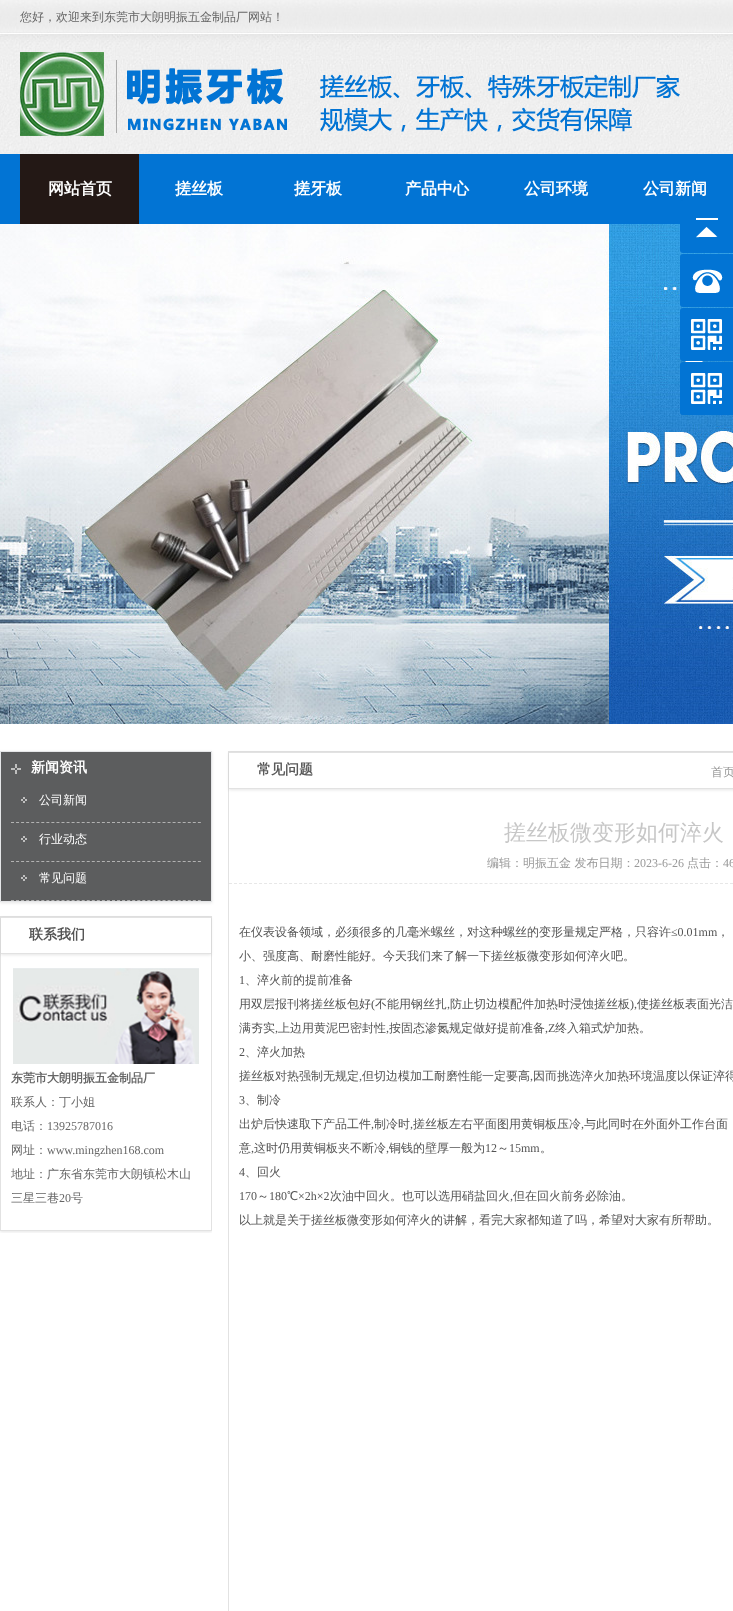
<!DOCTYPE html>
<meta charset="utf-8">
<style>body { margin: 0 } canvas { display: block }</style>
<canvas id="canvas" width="733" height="1611"></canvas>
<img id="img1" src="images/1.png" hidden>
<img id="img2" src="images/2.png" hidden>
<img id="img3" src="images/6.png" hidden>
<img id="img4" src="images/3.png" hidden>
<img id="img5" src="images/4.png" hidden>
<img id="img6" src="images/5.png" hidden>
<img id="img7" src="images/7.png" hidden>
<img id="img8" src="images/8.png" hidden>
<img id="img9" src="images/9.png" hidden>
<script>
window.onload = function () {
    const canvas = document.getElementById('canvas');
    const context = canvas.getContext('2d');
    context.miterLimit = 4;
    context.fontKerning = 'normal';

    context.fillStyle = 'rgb(255, 255, 255)';
    context.fillRect(0, 0, 733, 1611);
    context.drawImage(document.getElementById('img1'), 0, 0, 733, 154);
    context.drawImage(document.getElementById('img2'), 20, 52, 660, 84);
    context.fillStyle = 'rgb(2, 116, 212)';
    context.fillRect(0, 154, 733, 70);
    context.fillStyle = 'rgb(35, 24, 21)';
    context.fillRect(20, 154, 119, 70);
    context.drawImage(document.getElementById('img3'), 0, 224, 733, 500);
    context.fillStyle = 'rgb(2, 116, 212)';
    context.beginPath();
    context.roundRect(680, 200, 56, 53, 3);
    context.fill();
    context.drawImage(document.getElementById('img4'), 696, 218, 22, 20);
    context.beginPath();
    context.roundRect(680, 254, 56, 53, 3);
    context.fill();
    context.drawImage(document.getElementById('img5'), 692, 269, 31, 24);
    context.beginPath();
    context.roundRect(680, 308, 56, 53, 3);
    context.fill();
    context.drawImage(document.getElementById('img6'), 691, 319, 31, 31);
    context.beginPath();
    context.roundRect(680, 362, 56, 53, 3);
    context.fill();
    context.drawImage(document.getElementById('img6'), 691, 373, 31, 31);
    context.fillStyle = 'rgba(0, 0, 0, 0.1)';
    context.filter = 'blur(1.5px)';
    context.beginPath();
    context.rect(0, 752, 212, 151);
    context.fill();
    context.filter = 'none';
    context.fillStyle = 'rgb(92, 93, 94)';
    context.beginPath();
    context.rect(0.5, 751.5, 211, 150);
    context.fill();
    context.strokeStyle = 'rgb(229, 230, 232)';
    context.stroke();
    context.drawImage(document.getElementById('img7'), 11, 764, 10, 10);
    context.beginPath();
    context.moveTo(11, 822.5);
    context.lineTo(201, 822.5);
    context.strokeStyle = 'rgb(178, 178, 178)';
    context.setLineDash([3, 2.05]);
    context.stroke();
    context.drawImage(document.getElementById('img8'), 21, 797, 6, 6);
    context.beginPath();
    context.moveTo(11, 861.5);
    context.lineTo(201, 861.5);
    context.stroke();
    context.drawImage(document.getElementById('img8'), 21, 836, 6, 6);
    context.beginPath();
    context.moveTo(11, 900.5);
    context.lineTo(201, 900.5);
    context.stroke();
    context.drawImage(document.getElementById('img8'), 21, 875, 6, 6);
    context.save();
    context.beginPath();
    context.rect(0, 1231, 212, 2);
    context.clip();
    context.fillStyle = 'rgba(0, 0, 0, 0.1)';
    context.filter = 'blur(1.5px)';
    context.beginPath();
    context.rect(0, 917, 212, 315);
    context.fill();
    context.filter = 'none';
    context.restore();
    context.strokeStyle = 'rgb(226, 226, 226)';
    context.setLineDash([]);
    context.strokeRect(0.5, 916.5, 211, 314);
    context.save();
    context.beginPath();
    context.moveTo(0, 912);
    context.lineTo(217, 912);
    context.lineTo(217, 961);
    context.lineTo(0, 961);
    context.closePath();
    context.moveTo(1, 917);
    context.lineTo(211, 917);
    context.lineTo(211, 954);
    context.lineTo(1, 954);
    context.closePath();
    context.clip('evenodd');
    context.fillStyle = 'rgba(0, 0, 0, 0.1)';
    context.filter = 'blur(1.5px)';
    context.beginPath();
    context.rect(1, 918, 210, 37);
    context.fill();
    context.filter = 'none';
    context.restore();
    context.fillStyle = 'rgb(226, 226, 226)';
    context.fillRect(1, 917, 210, 1);
    context.fillRect(1, 953, 210, 1);
    context.drawImage(document.getElementById('img9'), 13, 968, 186, 96);
    context.strokeRect(228.5, 751.5, 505, 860);
    context.save();
    context.beginPath();
    context.moveTo(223, 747);
    context.lineTo(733, 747);
    context.lineTo(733, 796);
    context.lineTo(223, 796);
    context.closePath();
    context.moveTo(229, 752);
    context.lineTo(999, 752);
    context.lineTo(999, 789);
    context.lineTo(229, 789);
    context.closePath();
    context.clip('evenodd');
    context.fillStyle = 'rgba(0, 0, 0, 0.1)';
    context.filter = 'blur(1.5px)';
    context.beginPath();
    context.rect(229, 753, 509, 37);
    context.fill();
    context.filter = 'none';
    context.restore();
    context.fillRect(229, 752, 504, 1);
    context.fillRect(229, 788, 504, 1);
    context.beginPath();
    context.moveTo(229, 883.5);
    context.lineTo(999, 883.5);
    context.strokeStyle = 'rgb(231, 231, 231)';
    context.setLineDash([3, 2.01]);
    context.stroke();
    context.font = '500 12px WenQuanYi Zen Hei';
    context.fillStyle = 'rgb(102, 102, 102)';
    context.fillText('您好，欢迎来到东莞市大朗明振五金制品厂网站！', 20, 21);
    context.font = 'bold 16px WenQuanYi Zen Hei';
    context.fillStyle = 'rgb(255, 255, 255)';
    context.fillText('网站首页', 48, 194);
    context.fillText('搓丝板', 175, 194);
    context.fillText('搓牙板', 294, 194);
    context.fillText('产品中心', 405, 194);
    context.fillText('公司环境', 524, 194);
    context.fillText('公司新闻', 643, 194);
    context.font = 'bold 14px WenQuanYi Zen Hei';
    context.fillText('新闻资讯', 31, 772);
    context.font = '500 12px WenQuanYi Zen Hei';
    context.fillText('公司新闻', 39, 804);
    context.fillText('行业动态', 39, 843);
    context.fillText('常见问题', 39, 882);
    context.font = 'bold 14px WenQuanYi Zen Hei';
    context.fillStyle = 'rgb(83, 83, 83)';
    context.fillText('联系我们', 29, 939);
    context.font = 'bold 12px WenQuanYi Zen Hei';
    context.fillStyle = 'rgb(102, 102, 102)';
    context.fillText('东莞市大朗明振五金制品厂', 11, 1082);
    context.font = '500 12px WenQuanYi Zen Hei';
    context.fillText('联系人：丁小姐', 11, 1106);
    context.fillText('电话：', 11, 1130);
    context.font = '12px Liberation Serif';
    context.fillText('13925787016', 47, 1130);
    context.font = '500 12px WenQuanYi Zen Hei';
    context.fillText('网址：', 11, 1154);
    context.font = '12px Liberation Serif';
    context.fillText('www.mingzhen168.com', 47, 1154);
    context.font = '500 12px WenQuanYi Zen Hei';
    context.fillText('地址：广东省东莞市大朗镇松木山', 11, 1178);
    context.fillText('三星三巷', 11, 1202);
    context.font = '12px Liberation Serif';
    context.fillText('20', 59, 1202);
    context.font = '500 12px WenQuanYi Zen Hei';
    context.fillText('号', 71, 1202);
    context.font = 'bold 14px WenQuanYi Zen Hei';
    context.fillStyle = 'rgb(90, 90, 90)';
    context.fillText('常见问题', 257, 774);
    context.font = '500 12px WenQuanYi Zen Hei';
    context.fillStyle = 'rgb(153, 153, 153)';
    context.fillText('首页', 711, 776);
    context.font = '500 22px WenQuanYi Zen Hei';
    context.fillStyle = 'rgb(199, 199, 199)';
    context.fillText('搓丝板微变形如何淬火', 504, 840);
    context.font = '500 12px WenQuanYi Zen Hei';
    context.fillStyle = 'rgb(153, 153, 153)';
    context.fillText('编辑：明振五金 发布日期：', 487, 867);
    context.font = '12px Liberation Serif';
    context.fillText('2023-6-26', 634, 867);
    context.font = '500 12px WenQuanYi Zen Hei';
    context.fillText('点击：', 687, 867);
    context.font = '12px Liberation Serif';
    context.fillText('46', 723, 867);
    context.font = '500 12px WenQuanYi Zen Hei';
    context.fillStyle = 'rgb(83, 83, 83)';
    context.fillText('在仪表设备领域，必须很多的几毫米螺丝，对这种螺丝的变形量规定严格，只容许', 239, 936);
    context.font = '12px Liberation Serif';
    context.fillText('≤0.01mm', 671, 936);
    context.font = '500 12px WenQuanYi Zen Hei';
    context.fillText('，', 717, 936);
    context.fillText('小、强度高、耐磨性能好。今天我们来了解一下搓丝板微变形如何淬火吧。', 239, 960);
    context.font = '12px Liberation Serif';
    context.fillText('1', 239, 984);
    context.font = '500 12px WenQuanYi Zen Hei';
    context.fillText('、淬火前的提前准备', 245, 984);
    context.fillText('用双层报刊将搓丝板包好', 239, 1008);
    context.font = '12px Liberation Serif';
    context.fillText('(', 371, 1008);
    context.font = '500 12px WenQuanYi Zen Hei';
    context.fillText('不能用钢丝扎', 375, 1008);
    context.font = '12px Liberation Serif';
    context.fillText(',', 447, 1008);
    context.font = '500 12px WenQuanYi Zen Hei';
    context.fillText('防止切边模配件加热时浸蚀搓丝板', 450, 1008);
    context.font = '12px Liberation Serif';
    context.fillText('),', 630, 1008);
    context.font = '500 12px WenQuanYi Zen Hei';
    context.fillText('使搓丝板表面光洁', 637, 1008);
    context.fillText('满夯实', 239, 1032);
    context.font = '12px Liberation Serif';
    context.fillText(',', 275, 1032);
    context.font = '500 12px WenQuanYi Zen Hei';
    context.fillText('上边用黄泥巴密封性', 278, 1032);
    context.font = '12px Liberation Serif';
    context.fillText(',', 386, 1032);
    context.font = '500 12px WenQuanYi Zen Hei';
    context.fillText('按固态渗氮规定做好提前准备', 389, 1032);
    context.font = '12px Liberation Serif';
    context.fillText(',Z', 545, 1032);
    context.font = '500 12px WenQuanYi Zen Hei';
    context.fillText('终入箱式炉加热。', 555, 1032);
    context.font = '12px Liberation Serif';
    context.fillText('2', 239, 1056);
    context.font = '500 12px WenQuanYi Zen Hei';
    context.fillText('、淬火加热', 245, 1056);
    context.fillText('搓丝板对热强制无规定', 239, 1080);
    context.font = '12px Liberation Serif';
    context.fillText(',', 359, 1080);
    context.font = '500 12px WenQuanYi Zen Hei';
    context.fillText('但切边模加工耐磨性能一定要高', 362, 1080);
    context.font = '12px Liberation Serif';
    context.fillText(',', 530, 1080);
    context.font = '500 12px WenQuanYi Zen Hei';
    context.fillText('因而挑选淬火加热环境温度以保证淬得', 533, 1080);
    context.font = '12px Liberation Serif';
    context.fillText('3', 239, 1104);
    context.font = '500 12px WenQuanYi Zen Hei';
    context.fillText('、制冷', 245, 1104);
    context.fillText('出炉后快速取下产品工件', 239, 1128);
    context.font = '12px Liberation Serif';
    context.fillText(',', 371, 1128);
    context.font = '500 12px WenQuanYi Zen Hei';
    context.fillText('制冷时', 374, 1128);
    context.font = '12px Liberation Serif';
    context.fillText(',', 410, 1128);
    context.font = '500 12px WenQuanYi Zen Hei';
    context.fillText('搓丝板左右平面图用黄铜板压冷', 413, 1128);
    context.font = '12px Liberation Serif';
    context.fillText(',', 581, 1128);
    context.font = '500 12px WenQuanYi Zen Hei';
    context.fillText('与此同时在外面外工作台面', 584, 1128);
    context.fillText('意', 239, 1152);
    context.fillText('这时仍用黄铜板夹不断冷', 254, 1152);
    context.fillText('铜钱的壁厚一般为', 389, 1152);
    context.font = '12px Liberation Serif';
    context.fillText('12', 485, 1152);
    context.font = '500 12px WenQuanYi Zen Hei';
    context.fillText('～', 497, 1152);
    context.font = '12px Liberation Serif';
    context.fillText('15mm', 509, 1152);
    context.fillText(',', 251, 1152);
    context.fillText(',', 386, 1152);
    context.font = '500 12px WenQuanYi Zen Hei';
    context.fillText('。', 540, 1152);
    context.font = '12px Liberation Serif';
    context.fillText('4', 239, 1176);
    context.font = '500 12px WenQuanYi Zen Hei';
    context.fillText('、回火', 245, 1176);
    context.font = '12px Liberation Serif';
    context.fillText('170', 239, 1200);
    context.font = '500 12px WenQuanYi Zen Hei';
    context.fillText('～', 257, 1200);
    context.font = '12px Liberation Serif';
    context.fillText('180', 269, 1200);
    context.font = '500 12px WenQuanYi Zen Hei';
    context.fillText('℃', 287, 1200);
    context.font = '12px Liberation Serif';
    context.fillText('×2h×2', 298, 1200);
    context.font = '500 12px WenQuanYi Zen Hei';
    context.fillText('次油中回火。也可以选用硝盐回火', 330, 1200);
    context.fillText('但在回火前务必除油。', 513, 1200);
    context.font = '12px Liberation Serif';
    context.fillText(',', 510, 1200);
    context.font = '500 12px WenQuanYi Zen Hei';
    context.fillText('以上就是关于搓丝板微变形如何淬火的讲解，看完大家都知道了吗，希望对大家有所帮助。', 239, 1224);
};
</script>
